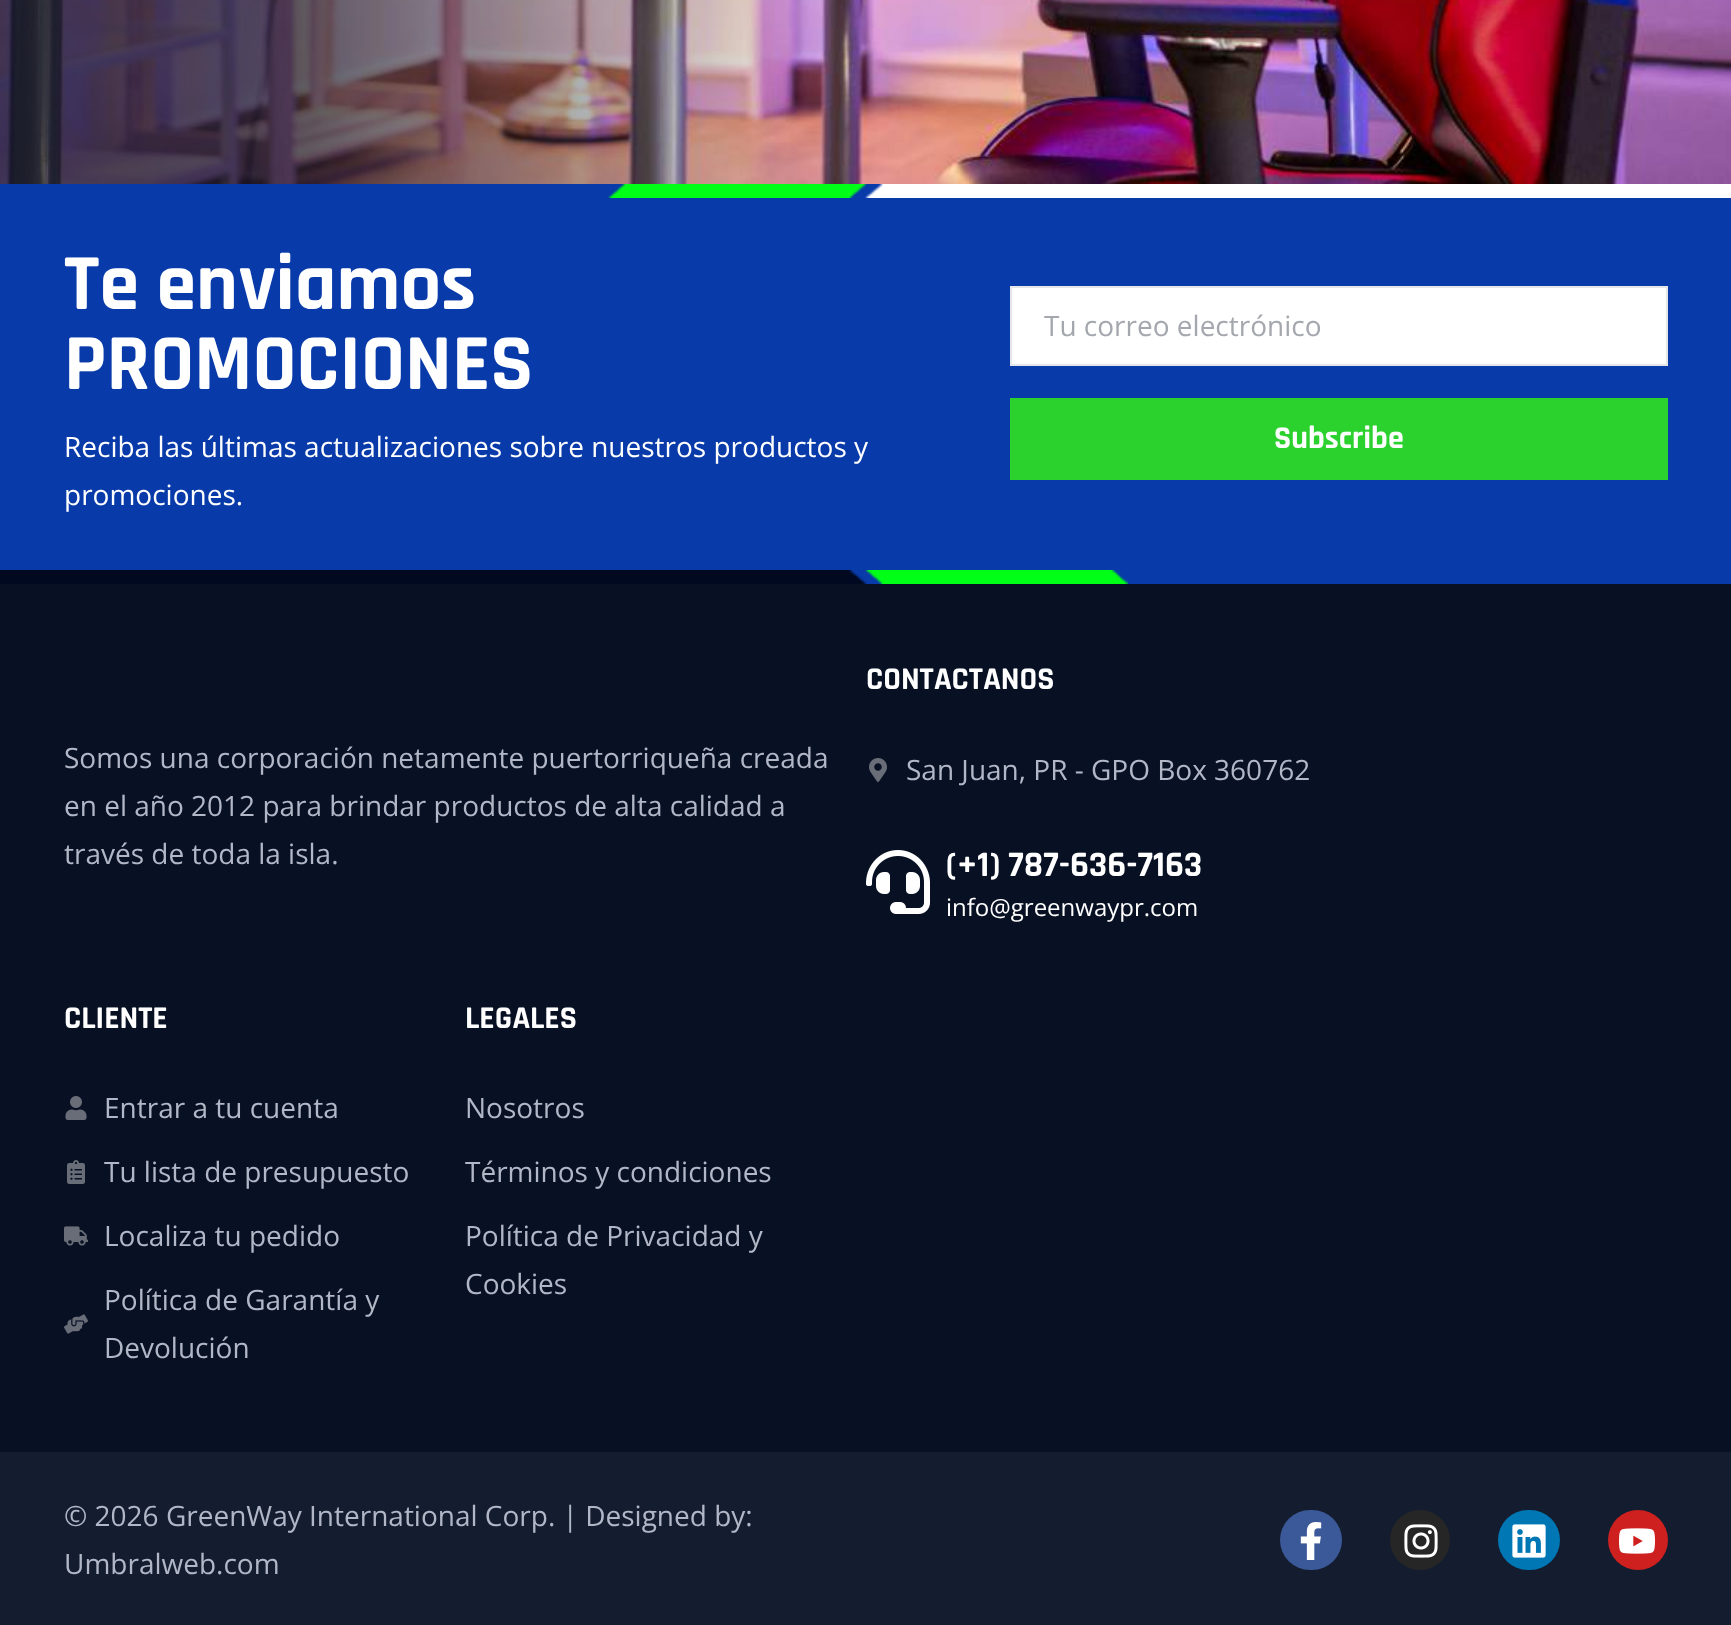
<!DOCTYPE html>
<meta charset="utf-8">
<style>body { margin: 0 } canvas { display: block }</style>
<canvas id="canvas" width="1731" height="1625"></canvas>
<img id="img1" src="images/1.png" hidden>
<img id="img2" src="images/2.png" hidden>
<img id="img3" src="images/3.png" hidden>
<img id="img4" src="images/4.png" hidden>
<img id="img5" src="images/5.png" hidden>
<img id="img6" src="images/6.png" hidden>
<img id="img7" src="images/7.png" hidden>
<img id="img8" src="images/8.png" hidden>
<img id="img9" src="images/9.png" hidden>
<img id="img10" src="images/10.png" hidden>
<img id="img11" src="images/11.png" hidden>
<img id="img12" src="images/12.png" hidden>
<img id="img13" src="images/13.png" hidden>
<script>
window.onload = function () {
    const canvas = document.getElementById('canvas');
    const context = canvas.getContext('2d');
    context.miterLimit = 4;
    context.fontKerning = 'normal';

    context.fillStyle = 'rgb(255, 255, 255)';
    context.fillRect(0, 0, 1731, 1625);
    context.drawImage(document.getElementById('img1'), 0, 0, 1731, 184);
    context.fillStyle = 'rgb(8, 58, 169)';
    context.fillRect(0, 184, 1731, 400);
    context.drawImage(document.getElementById('img2'), 608, 184, 1123, 14);
    context.fillStyle = 'rgb(255, 255, 255)';
    context.beginPath();
    context.rect(1011, 287, 656, 78);
    context.fill();
    context.strokeStyle = 'rgb(229, 230, 232)';
    context.lineWidth = 2;
    context.stroke();
    context.fillStyle = 'rgb(43, 209, 45)';
    context.fillRect(1010, 398, 658, 82);
    context.drawImage(document.getElementById('img3'), 0, 570, 1128, 14);
    context.fillStyle = 'rgb(8, 17, 36)';
    context.fillRect(0, 584, 1731, 868);
    context.drawImage(document.getElementById('img4'), 869, 758, 18, 24);
    context.drawImage(document.getElementById('img5'), 866, 850, 64, 64);
    context.drawImage(document.getElementById('img6'), 65, 1096, 22, 24);
    context.drawImage(document.getElementById('img7'), 67, 1160, 18, 24);
    context.drawImage(document.getElementById('img8'), 64, 1226, 24, 20);
    context.drawImage(document.getElementById('img9'), 64, 1314, 24, 20);
    context.fillStyle = 'rgb(20, 29, 47)';
    context.fillRect(0, 1452, 1731, 173);
    context.fillStyle = 'rgb(59, 89, 152)';
    context.beginPath();
    context.roundRect(1280, 1510, 62, 60, 30);
    context.fill();
    context.drawImage(document.getElementById('img10'), 1300, 1522, 22, 38);
    context.fillStyle = 'rgb(38, 38, 38)';
    context.beginPath();
    context.arc(1420, 1540, 30, 0, 2 * Math.PI);
    context.fill();
    context.drawImage(document.getElementById('img11'), 1404, 1524, 34, 34);
    context.fillStyle = 'rgb(0, 119, 181)';
    context.beginPath();
    context.roundRect(1498, 1510, 62, 60, 30);
    context.fill();
    context.drawImage(document.getElementById('img12'), 1512, 1524, 34, 34);
    context.fillStyle = 'rgb(205, 32, 31)';
    context.beginPath();
    context.arc(1638, 1540, 30, 0, 2 * Math.PI);
    context.fill();
    context.drawImage(document.getElementById('img13'), 1619, 1528, 36, 26);
    context.font = 'bold 80px Rajdhani';
    context.fillStyle = 'rgb(255, 255, 255)';
    context.fillText('Te enviamos', 64, 309);
    context.fillText('PROMOCIONES', 64, 389);
    context.font = '28px Open Sans';
    context.fillText('Reciba las últimas actualizaciones sobre nuestros productos y', 64, 457);
    context.fillText('promociones.', 64, 505);
    context.fillStyle = 'rgb(164, 167, 173)';
    context.fillText('Tu correo electrónico', 1044, 336);
    context.font = 'bold 32px Rajdhani';
    context.fillStyle = 'rgb(255, 255, 255)';
    context.fillText('Subscribe', 1274, 448);
    context.font = '28px Open Sans';
    context.fillStyle = 'rgb(177, 183, 198)';
    context.fillText('Somos una corporación netamente puertorriqueña creada', 64, 768);
    context.fillText('en el año 2012 para brindar productos de alta calidad a', 64, 816);
    context.fillText('través de toda la isla.', 64, 864);
    context.font = 'bold 32px Rajdhani';
    context.fillStyle = 'rgb(255, 255, 255)';
    context.fillText('CONTACTANOS', 866, 689);
    context.font = '28px Open Sans';
    context.fillStyle = 'rgb(177, 183, 198)';
    context.fillText('San Juan, PR - GPO Box 360762', 906, 780);
    context.font = 'bold 36px Rajdhani';
    context.fillStyle = 'rgb(255, 255, 255)';
    context.fillText('(+1) 787-636-7163', 946, 876);
    context.font = '24px Open Sans';
    context.fillText('info@greenwaypr.com', 946, 916);
    context.font = 'bold 32px Rajdhani';
    context.fillText('CLIENTE', 64, 1028);
    context.font = '28px Open Sans';
    context.fillStyle = 'rgb(177, 183, 198)';
    context.fillText('Entrar a tu cuenta', 104, 1118);
    context.fillText('Tu lista de presupuesto', 104, 1182);
    context.fillText('Localiza tu pedido', 104, 1246);
    context.fillText('Política de Garantía y', 104, 1310);
    context.fillText('Devolución', 104, 1358);
    context.font = 'bold 32px Rajdhani';
    context.fillStyle = 'rgb(255, 255, 255)';
    context.fillText('LEGALES', 465, 1028);
    context.font = '28px Open Sans';
    context.fillStyle = 'rgb(177, 183, 198)';
    context.fillText('Nosotros', 465, 1118);
    context.fillText('Términos y condiciones', 465, 1182);
    context.fillText('Política de Privacidad y', 465, 1246);
    context.fillText('Cookies', 465, 1294);
    context.fillText('© 2026 GreenWay International Corp. | Designed by:', 64, 1526);
    context.fillText('Umbralweb.com', 64, 1574);
};
</script>
